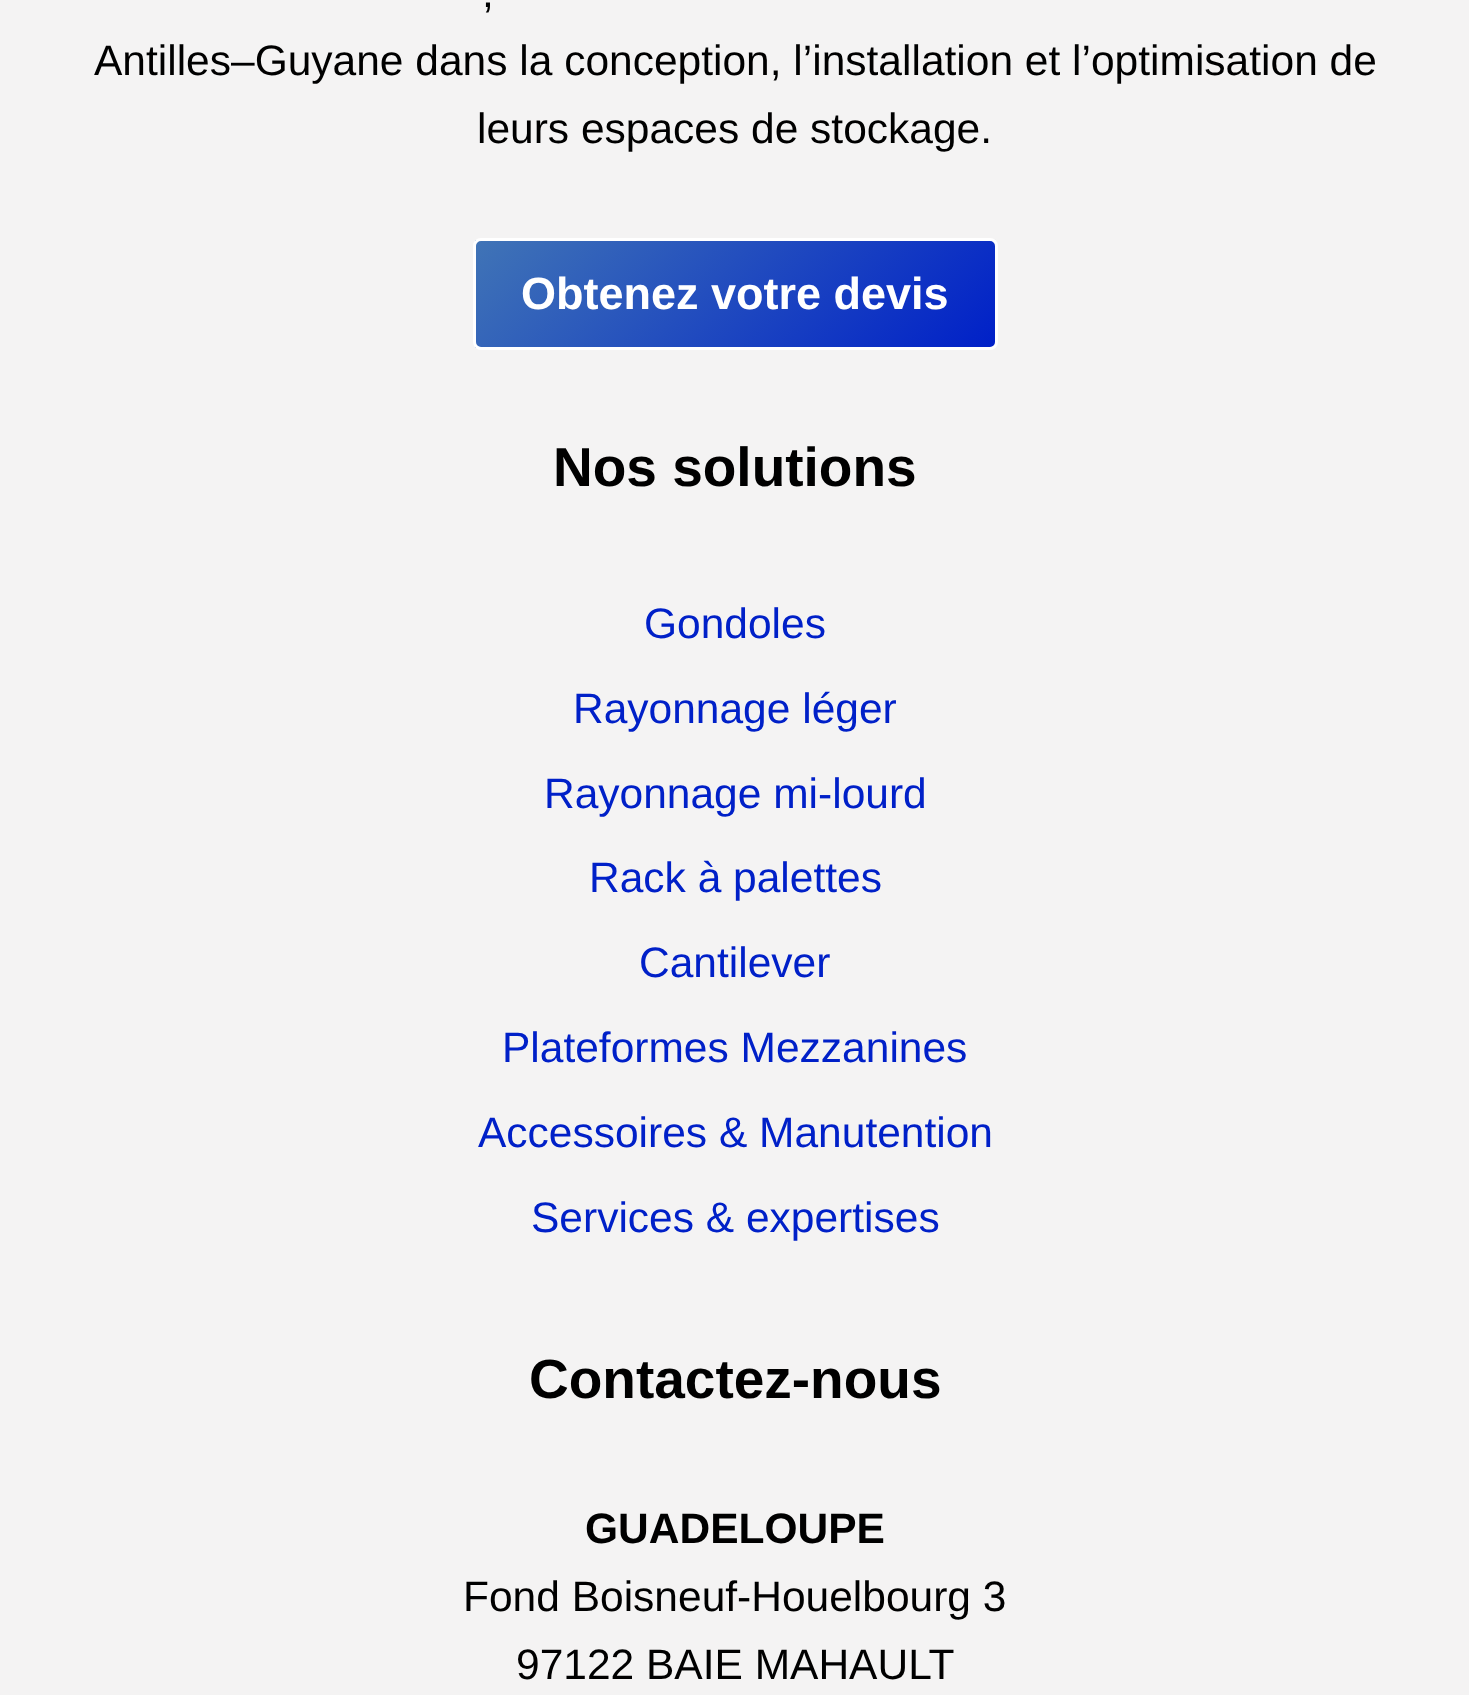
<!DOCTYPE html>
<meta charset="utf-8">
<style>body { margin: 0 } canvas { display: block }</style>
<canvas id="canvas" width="1469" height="1695"></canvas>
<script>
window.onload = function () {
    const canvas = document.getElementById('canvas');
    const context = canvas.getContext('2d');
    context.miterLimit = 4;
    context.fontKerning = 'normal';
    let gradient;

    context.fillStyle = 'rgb(244, 243, 243)';
    context.fillRect(0, 0, 1469, 1695);
    context.save();
    context.beginPath();
    context.roundRect(473, 238, 525, 112, 8);
    context.clip();
    gradient = context.createLinearGradient(1098, 29, 1412, 343);
    gradient.addColorStop(0, 'rgb(64, 116, 182)');
    gradient.addColorStop(1, 'rgb(0, 32, 200)');
    context.fillStyle = gradient;
    context.fillRect(995, 239, 3, 1);
    context.restore();
    gradient = context.createLinearGradient(578, 137, 892, 451);
    gradient.addColorStop(0, 'rgb(64, 116, 182)');
    gradient.addColorStop(1, 'rgb(0, 32, 200)');
    context.fillStyle = gradient;
    context.fillRect(475, 240, 520, 108);
    context.beginPath();
    context.roundRect(474.5, 239.5, 522, 109, 6.5);
    context.strokeStyle = 'rgb(255, 255, 255)';
    context.lineWidth = 3;
    context.stroke();
    context.font = '42.5px Liberation Sans';
    context.fillStyle = 'rgb(0, 0, 0)';
    context.fillText(',', 482, 7);
    context.fillText('Antilles–Guyane dans la conception, l’installation et l’optimisation de', 94, 75);
    context.fillText('leurs espaces de stockage.', 477, 143);
    context.font = 'bold 45px Liberation Sans';
    context.fillStyle = 'rgb(255, 255, 255)';
    context.fillText('Obtenez votre devis', 521, 309);
    context.font = 'bold 55px Liberation Sans';
    context.fillStyle = 'rgb(0, 0, 0)';
    context.fillText('Nos solutions', 553, 486);
    context.font = '42.5px Liberation Sans';
    context.fillStyle = 'rgb(0, 32, 200)';
    context.fillText('Gondoles', 644, 638);
    context.fillText('Rayonnage léger', 573, 723);
    context.fillText('Rayonnage mi-lourd', 544, 808);
    context.fillText('Rack à palettes', 589, 892);
    context.fillText('Cantilever', 639, 977);
    context.fillText('Plateformes Mezzanines', 502, 1062);
    context.fillText('Accessoires & Manutention', 478, 1147);
    context.fillText('Services & expertises', 531, 1232);
    context.font = 'bold 55px Liberation Sans';
    context.fillStyle = 'rgb(0, 0, 0)';
    context.fillText('Contactez-nous', 529, 1398);
    context.font = 'bold 42.5px Liberation Sans';
    context.fillText('GUADELOUPE', 585, 1543);
    context.font = '42.5px Liberation Sans';
    context.fillText('Fond Boisneuf-Houelbourg 3', 463, 1611);
    context.fillText('97122 BAIE MAHAULT', 516, 1679);
};
</script>
